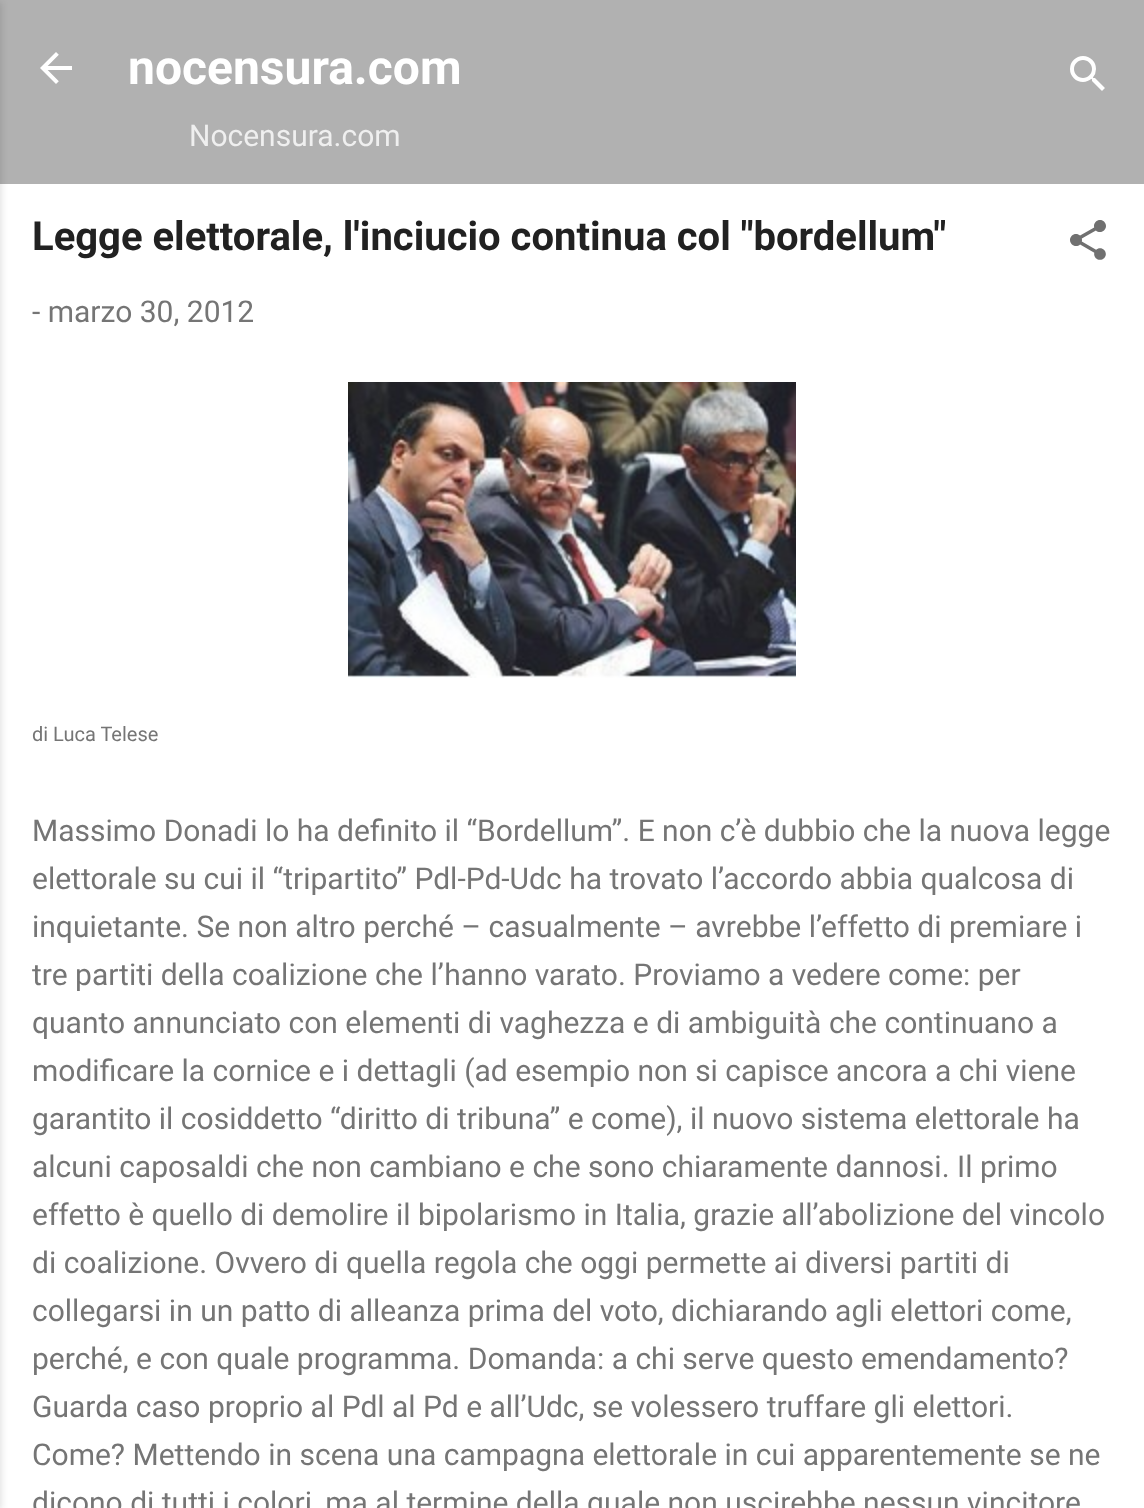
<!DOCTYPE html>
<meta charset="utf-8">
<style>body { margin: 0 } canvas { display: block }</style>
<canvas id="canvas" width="1144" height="1508"></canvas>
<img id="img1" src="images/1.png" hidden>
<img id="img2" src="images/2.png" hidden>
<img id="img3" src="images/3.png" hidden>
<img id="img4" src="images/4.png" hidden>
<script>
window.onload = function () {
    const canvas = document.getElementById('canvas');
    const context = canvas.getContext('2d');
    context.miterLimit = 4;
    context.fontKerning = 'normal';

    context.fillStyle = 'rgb(177, 177, 177)';
    context.fillRect(0, 0, 1144, 1508);
    context.fillStyle = 'rgb(255, 255, 255)';
    context.fillRect(0, 184, 1144, 1324);
    context.fillStyle = 'rgba(0, 0, 0, 0.1)';
    context.filter = 'blur(3px)';
    context.beginPath();
    context.rect(-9, 2, 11, 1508);
    context.fill();
    context.filter = 'none';
    context.drawImage(document.getElementById('img1'), 40, 52, 32, 32);
    context.drawImage(document.getElementById('img2'), 1070, 56, 35, 35);
    context.drawImage(document.getElementById('img3'), 1070, 220, 36, 40);
    context.drawImage(document.getElementById('img4'), 348, 382, 448, 296);
    context.font = 'bold 48px Roboto';
    context.fillStyle = 'rgb(255, 255, 255)';
    context.fillText('nocensura.com', 128, 84);
    context.font = '30px Roboto';
    context.fillStyle = 'rgb(239, 239, 239)';
    context.fillText('Nocensura.com', 189, 146);
    context.font = 'bold 40px Roboto';
    context.fillStyle = 'rgb(33, 33, 33)';
    context.fillText('Legge elettorale, l\'inciucio continua col "bordellum"', 32, 250);
    context.font = '30px Roboto';
    context.fillStyle = 'rgb(117, 117, 117)';
    context.fillText('- marzo 30, 2012', 32, 322);
    context.font = '20px Roboto';
    context.fillText('di Luca Telese', 32, 741);
    context.font = '30px Roboto';
    context.fillText('Massimo Donadi lo ha definito il “Bordellum”. E non c’è dubbio che la nuova legge', 32, 841);
    context.fillText('elettorale su cui il “tripartito” Pdl-Pd-Udc ha trovato l’accordo abbia qualcosa di', 32, 889);
    context.fillText('inquietante. Se non altro perché – casualmente – avrebbe l’effetto di premiare i', 32, 937);
    context.fillText('tre partiti della coalizione che l’hanno varato. Proviamo a vedere come: per', 32, 985);
    context.fillText('quanto annunciato con elementi di vaghezza e di ambiguità che continuano a', 32, 1033);
    context.fillText('modificare la cornice e i dettagli (ad esempio non si capisce ancora a chi viene', 32, 1081);
    context.fillText('garantito il cosiddetto “diritto di tribuna” e come), il nuovo sistema elettorale ha', 32, 1129);
    context.fillText('alcuni caposaldi che non cambiano e che sono chiaramente dannosi. Il primo', 32, 1177);
    context.fillText('effetto è quello di demolire il bipolarismo in Italia, grazie all’abolizione del vincolo', 32, 1225);
    context.fillText('di coalizione. Ovvero di quella regola che oggi permette ai diversi partiti di', 32, 1273);
    context.fillText('collegarsi in un patto di alleanza prima del voto, dichiarando agli elettori come,', 32, 1321);
    context.fillText('perché, e con quale programma. Domanda: a chi serve questo emendamento?', 32, 1369);
    context.fillText('Guarda caso proprio al Pdl al Pd e all’Udc, se volessero truffare gli elettori.', 32, 1417);
    context.fillText('Come? Mettendo in scena una campagna elettorale in cui apparentemente se ne', 32, 1465);
    context.fillText('dicono di tutti i colori, ma al termine della quale non uscirebbe nessun vincitore', 32, 1513);
};
</script>
